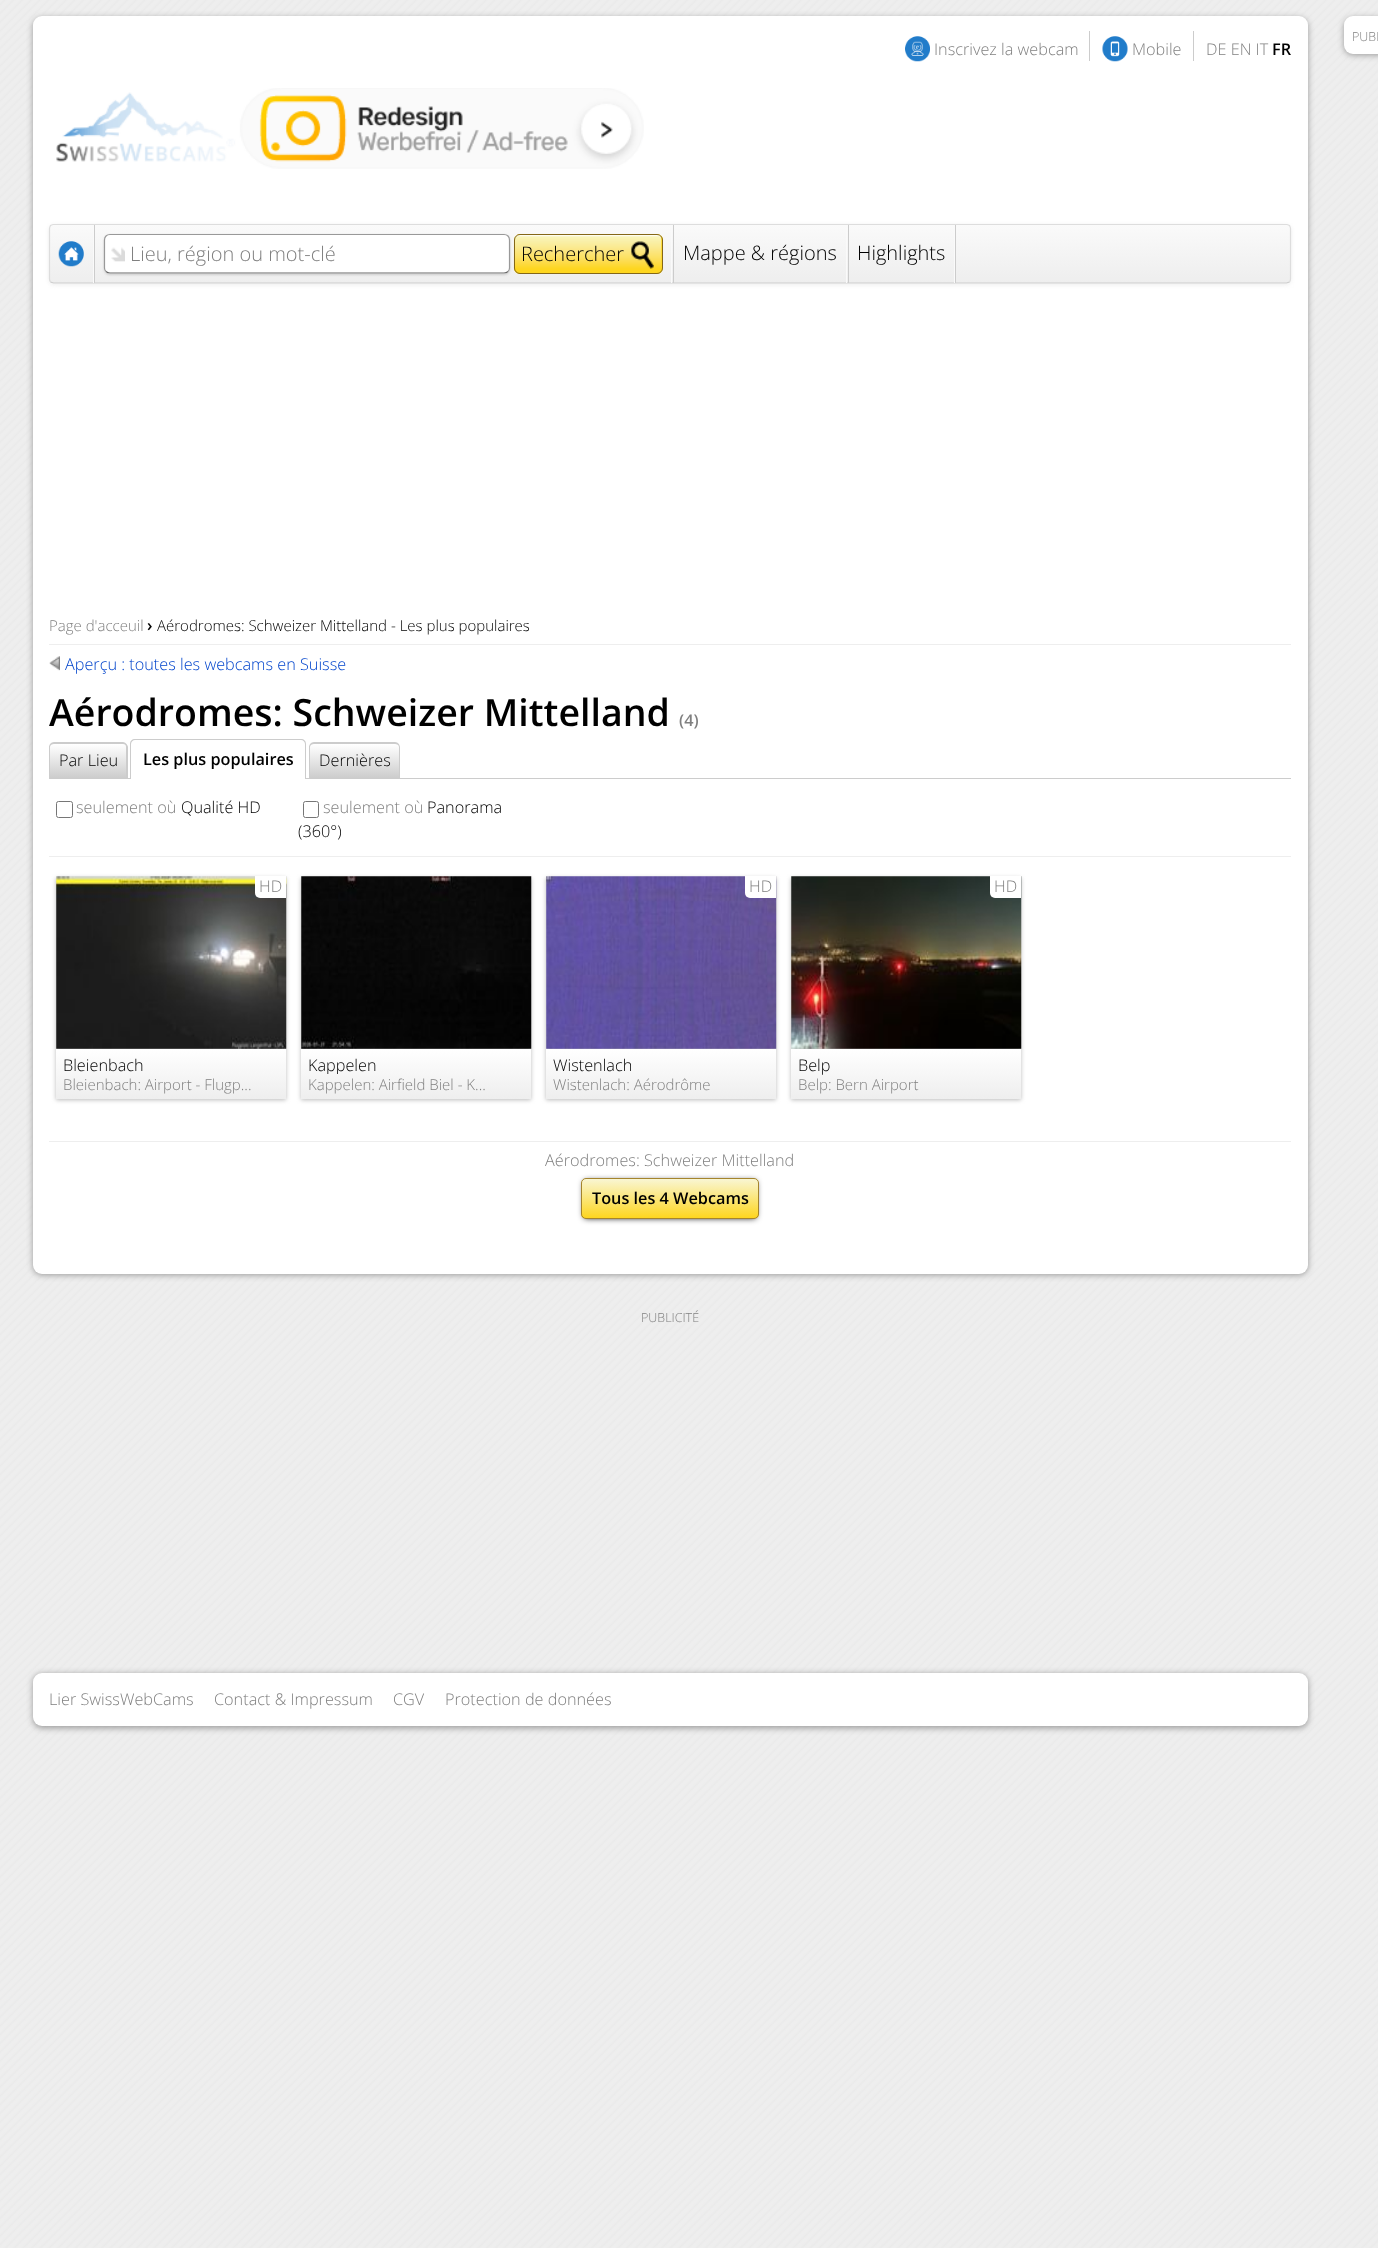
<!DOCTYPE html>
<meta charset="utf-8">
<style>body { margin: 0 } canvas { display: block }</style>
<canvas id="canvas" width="1378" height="2248"></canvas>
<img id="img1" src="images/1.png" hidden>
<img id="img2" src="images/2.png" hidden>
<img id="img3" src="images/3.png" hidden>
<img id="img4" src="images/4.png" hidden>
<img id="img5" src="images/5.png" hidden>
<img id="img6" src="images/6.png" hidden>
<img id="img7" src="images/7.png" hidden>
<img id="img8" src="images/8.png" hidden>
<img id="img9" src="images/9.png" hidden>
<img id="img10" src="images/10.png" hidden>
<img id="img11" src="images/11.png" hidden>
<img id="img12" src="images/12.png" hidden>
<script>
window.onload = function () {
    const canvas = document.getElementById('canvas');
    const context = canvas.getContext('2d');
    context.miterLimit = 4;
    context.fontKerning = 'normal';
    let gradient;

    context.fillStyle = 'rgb(255, 255, 255)';
    context.fillRect(0, 0, 1378, 2248);
    context.drawImage(document.getElementById('img1'), 0, 0, 1378, 2248);
    context.fillStyle = 'rgb(153, 153, 153)';
    context.filter = 'blur(3px)';
    context.beginPath();
    context.roundRect(1344, 18, 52, 37, 9);
    context.fill();
    context.filter = 'none';
    context.fillStyle = 'rgb(255, 255, 255)';
    context.beginPath();
    context.roundRect(1344, 16, 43, 38, 9);
    context.fill();
    context.fillStyle = 'rgb(153, 153, 153)';
    context.filter = 'blur(3px)';
    context.beginPath();
    context.roundRect(33, 18, 1275, 1257, 9);
    context.fill();
    context.filter = 'none';
    context.fillStyle = 'rgb(255, 255, 255)';
    context.beginPath();
    context.roundRect(33, 16, 1275, 1258, 9);
    context.fill();
    context.drawImage(document.getElementById('img2'), 905, 36, 25, 26);
    context.fillStyle = 'rgb(204, 204, 204)';
    context.fillRect(1089, 31, 1, 30);
    context.drawImage(document.getElementById('img3'), 1102, 36, 26, 26);
    context.fillRect(1193, 31, 1, 30);
    context.drawImage(document.getElementById('img4'), 56, 88, 588, 81);
    context.fillStyle = 'rgb(238, 238, 238)';
    context.filter = 'blur(2px)';
    context.beginPath();
    context.roundRect(49, 225, 1242, 60, 5);
    context.fill();
    context.filter = 'none';
    context.save();
    context.beginPath();
    context.roundRect(49, 224, 1242, 60, 5);
    context.clip();
    gradient = context.createLinearGradient(50, 225, 50, 283);
    gradient.addColorStop(0, 'rgb(250, 250, 250)');
    gradient.addColorStop(1, 'rgb(238, 238, 238)');
    context.fillStyle = gradient;
    context.fillRect(49, 225, 1242, 58);
    gradient = context.createLinearGradient(50, 283, 50, 340);
    gradient.addColorStop(0, 'rgb(250, 250, 250)');
    gradient.addColorStop(1, 'rgb(238, 238, 238)');
    context.fillStyle = gradient;
    context.fillRect(49, 283, 1242, 1);
    context.restore();
    context.beginPath();
    context.moveTo(1289.5, 282);
    context.lineTo(1286.5, 283);
    context.lineTo(53.5, 283);
    context.lineTo(50.5, 282);
    context.strokeStyle = 'rgb(204, 204, 204)';
    context.lineWidth = 1.2;
    context.stroke();
    context.beginPath();
    context.moveTo(50.5, 282);
    context.bezierCurveTo(50, 281, 49.5, 280, 49.5, 279);
    context.lineTo(49.5, 228.5);
    context.bezierCurveTo(49.5, 227.5, 50, 226.5, 50.5, 225.5);
    context.bezierCurveTo(51.5, 225, 52.5, 224.5, 53.5, 224.5);
    context.lineTo(1286.5, 224.5);
    context.bezierCurveTo(1287.5, 224.5, 1288.5, 225, 1289.5, 225.5);
    context.bezierCurveTo(1290, 226.5, 1290.5, 227.5, 1290.5, 228.5);
    context.lineTo(1290.5, 279);
    context.bezierCurveTo(1290.5, 280, 1290, 281, 1289.5, 282);
    context.strokeStyle = 'rgb(221, 221, 221)';
    context.stroke();
    context.fillStyle = 'rgb(204, 204, 204)';
    context.fillRect(955, 225, 1, 58);
    context.fillStyle = 'rgb(250, 250, 250)';
    context.fillRect(93, 225, 1, 58);
    context.drawImage(document.getElementById('img5'), 58, 241, 26, 26);
    context.fillRect(671, 225, 1, 58);
    context.fillStyle = 'rgb(204, 204, 204)';
    context.fillRect(94, 225, 1, 58);
    context.filter = 'blur(1px)';
    context.beginPath();
    context.roundRect(104, 235, 406, 40, 6);
    context.fill();
    context.filter = 'none';
    context.fillStyle = 'rgb(255, 255, 255)';
    context.beginPath();
    context.roundRect(104, 234, 406, 40, 6);
    context.fill();
    context.drawImage(document.getElementById('img6'), 105, 235, 20, 27);
    context.beginPath();
    context.moveTo(508, 271.5);
    context.bezierCurveTo(507, 272.5, 505.5, 273, 504, 273);
    context.lineTo(110, 273);
    context.bezierCurveTo(108.5, 273, 107, 272.5, 106, 271.5);
    context.strokeStyle = 'rgb(102, 102, 102)';
    context.stroke();
    context.beginPath();
    context.moveTo(106, 271.5);
    context.bezierCurveTo(105, 270.5, 104.5, 269, 104.5, 268);
    context.lineTo(104.5, 240);
    context.bezierCurveTo(104.5, 238.5, 105, 237, 106, 236);
    context.bezierCurveTo(107, 235, 108.5, 234.5, 110, 234.5);
    context.lineTo(504, 234.5);
    context.bezierCurveTo(505.5, 234.5, 507, 235, 508, 236);
    context.bezierCurveTo(509, 237, 509.5, 238.5, 509.5, 240);
    context.lineTo(509.5, 268);
    context.bezierCurveTo(509.5, 269, 509, 270.5, 508, 271.5);
    context.strokeStyle = 'rgb(153, 153, 153)';
    context.stroke();
    context.fillStyle = 'rgb(254, 214, 31)';
    context.beginPath();
    context.roundRect(514, 234, 149, 40, 6);
    context.fill();
    context.drawImage(document.getElementById('img7'), 513, 235, 149, 38);
    context.beginPath();
    context.roundRect(514.5, 234.5, 148, 39, 5.5);
    context.strokeStyle = 'rgb(132, 103, 24)';
    context.lineWidth = 1;
    context.stroke();
    context.fillStyle = 'rgb(250, 250, 250)';
    context.fillRect(846, 225, 1, 58);
    context.fillStyle = 'rgb(204, 204, 204)';
    context.fillRect(673, 225, 1, 58);
    context.fillStyle = 'rgb(250, 250, 250)';
    context.fillRect(954, 225, 1, 58);
    context.fillStyle = 'rgb(204, 204, 204)';
    context.fillRect(848, 225, 1, 58);
    context.fillStyle = 'rgb(238, 238, 238)';
    context.fillRect(49, 644, 1242, 1);
    context.drawImage(document.getElementById('img8'), 49, 656, 11, 15);
    context.save();
    context.beginPath();
    context.roundRect(49, 743, 79, 35, [5, 5, 0, 0]);
    context.clip();
    gradient = context.createLinearGradient(50, 744, 50, 778);
    gradient.addColorStop(0, 'rgb(255, 255, 255)');
    gradient.addColorStop(1, 'rgb(204, 204, 204)');
    context.fillStyle = gradient;
    context.fillRect(49, 744, 79, 34);
    context.restore();
    context.fillStyle = 'rgb(204, 204, 204)';
    context.beginPath();
    context.moveTo(54, 742);
    context.lineTo(123, 742);
    context.bezierCurveTo(125, 742, 128, 745, 128, 747);
    context.lineTo(128, 778);
    context.lineTo(49, 778);
    context.lineTo(49, 747);
    context.bezierCurveTo(49, 745, 51, 742, 54, 742);
    context.closePath();
    context.moveTo(54, 744);
    context.lineTo(123, 744);
    context.bezierCurveTo(125, 744, 126, 745, 126, 747);
    context.lineTo(126, 778);
    context.lineTo(50, 778);
    context.lineTo(50, 747);
    context.bezierCurveTo(50, 745, 52, 744, 54, 744);
    context.closePath();
    context.fill('evenodd');
    context.fillRect(49, 778, 1242, 1);
    context.fillStyle = 'rgb(255, 255, 255)';
    context.beginPath();
    context.roundRect(130, 739, 176, 40, [5, 5, 0, 0]);
    context.fill();
    context.fillStyle = 'rgb(204, 204, 204)';
    context.beginPath();
    context.moveTo(135, 739);
    context.lineTo(301, 739);
    context.bezierCurveTo(304, 739, 306, 741, 306, 744);
    context.lineTo(306, 779);
    context.lineTo(130, 779);
    context.lineTo(130, 744);
    context.bezierCurveTo(130, 741, 132, 739, 135, 739);
    context.closePath();
    context.moveTo(135, 740);
    context.lineTo(301, 740);
    context.bezierCurveTo(303, 740, 305, 742, 305, 744);
    context.lineTo(305, 779);
    context.lineTo(131, 779);
    context.lineTo(131, 744);
    context.bezierCurveTo(131, 742, 133, 740, 135, 740);
    context.closePath();
    context.fill('evenodd');
    context.save();
    context.beginPath();
    context.roundRect(309, 743, 91, 35, [5, 5, 0, 0]);
    context.clip();
    gradient = context.createLinearGradient(310, 744, 310, 778);
    gradient.addColorStop(0, 'rgb(255, 255, 255)');
    gradient.addColorStop(1, 'rgb(204, 204, 204)');
    context.fillStyle = gradient;
    context.fillRect(309, 744, 91, 34);
    context.restore();
    context.beginPath();
    context.moveTo(314, 742);
    context.lineTo(395, 742);
    context.bezierCurveTo(398, 742, 400, 745, 400, 747);
    context.lineTo(400, 778);
    context.lineTo(309, 778);
    context.lineTo(309, 747);
    context.bezierCurveTo(309, 745, 311, 742, 314, 742);
    context.closePath();
    context.moveTo(314, 744);
    context.lineTo(395, 744);
    context.bezierCurveTo(397, 744, 399, 745, 399, 747);
    context.lineTo(399, 778);
    context.lineTo(310, 778);
    context.lineTo(310, 747);
    context.bezierCurveTo(310, 745, 312, 744, 314, 744);
    context.closePath();
    context.fill('evenodd');
    context.beginPath();
    context.roundRect(56.5, 801.5, 16, 16, 2);
    context.strokeStyle = 'rgb(118, 118, 118)';
    context.stroke();
    context.beginPath();
    context.roundRect(303.5, 801.5, 15, 16, 2);
    context.stroke();
    context.fillStyle = 'rgb(238, 238, 238)';
    context.fillRect(49, 856, 1242, 1);
    context.fillStyle = 'rgb(187, 187, 187)';
    context.filter = 'blur(2px)';
    context.beginPath();
    context.rect(56, 878, 230, 222);
    context.fill();
    context.filter = 'none';
    context.drawImage(document.getElementById('img9'), 56, 876, 231, 173);
    context.fillStyle = 'rgb(255, 255, 255)';
    context.beginPath();
    context.roundRect(255, 876, 31, 22, [0, 0, 0, 5]);
    context.fill();
    gradient = context.createLinearGradient(56, 1049, 56, 1099);
    gradient.addColorStop(0, 'rgb(255, 255, 255)');
    gradient.addColorStop(1, 'rgb(238, 238, 238)');
    context.fillStyle = gradient;
    context.fillRect(56, 1049, 230, 50);
    context.fillStyle = 'rgb(187, 187, 187)';
    context.filter = 'blur(2px)';
    context.beginPath();
    context.rect(301, 878, 230, 222);
    context.fill();
    context.filter = 'none';
    context.drawImage(document.getElementById('img10'), 301, 876, 231, 173);
    gradient = context.createLinearGradient(301, 1049, 301, 1099);
    gradient.addColorStop(0, 'rgb(255, 255, 255)');
    gradient.addColorStop(1, 'rgb(238, 238, 238)');
    context.fillStyle = gradient;
    context.fillRect(301, 1049, 230, 50);
    context.fillStyle = 'rgb(187, 187, 187)';
    context.filter = 'blur(2px)';
    context.beginPath();
    context.rect(546, 878, 230, 222);
    context.fill();
    context.filter = 'none';
    context.drawImage(document.getElementById('img11'), 546, 876, 231, 173);
    context.fillStyle = 'rgb(255, 255, 255)';
    context.beginPath();
    context.roundRect(745, 876, 31, 22, [0, 0, 0, 5]);
    context.fill();
    gradient = context.createLinearGradient(546, 1049, 546, 1099);
    gradient.addColorStop(0, 'rgb(255, 255, 255)');
    gradient.addColorStop(1, 'rgb(238, 238, 238)');
    context.fillStyle = gradient;
    context.fillRect(546, 1049, 230, 50);
    context.fillStyle = 'rgb(187, 187, 187)';
    context.filter = 'blur(2px)';
    context.beginPath();
    context.rect(791, 878, 230, 222);
    context.fill();
    context.filter = 'none';
    context.drawImage(document.getElementById('img12'), 791, 876, 231, 173);
    context.fillStyle = 'rgb(255, 255, 255)';
    context.beginPath();
    context.roundRect(990, 876, 31, 22, [0, 0, 0, 5]);
    context.fill();
    gradient = context.createLinearGradient(791, 1049, 791, 1099);
    gradient.addColorStop(0, 'rgb(255, 255, 255)');
    gradient.addColorStop(1, 'rgb(238, 238, 238)');
    context.fillStyle = gradient;
    context.fillRect(791, 1049, 230, 50);
    context.fillStyle = 'rgb(238, 238, 238)';
    context.fillRect(49, 1141, 1242, 1);
    context.fillStyle = 'rgb(0, 0, 0)';
    context.filter = 'blur(3px)';
    context.beginPath();
    context.roundRect(584, 1181, 172, 37, 2.5);
    context.fill();
    context.filter = 'none';
    context.save();
    context.beginPath();
    context.roundRect(581, 1178, 178, 41, 5);
    context.clip();
    gradient = context.createLinearGradient(583, 1179, 583, 1218);
    gradient.addColorStop(0, 'rgb(249, 246, 211)');
    gradient.addColorStop(1, 'rgb(254, 214, 31)');
    context.fillStyle = gradient;
    context.fillRect(581, 1179, 178, 39);
    context.restore();
    context.beginPath();
    context.roundRect(581.5, 1178.5, 177, 40, 4.5);
    context.strokeStyle = 'rgb(164, 132, 45)';
    context.stroke();
    context.fillStyle = 'rgb(153, 153, 153)';
    context.filter = 'blur(3px)';
    context.beginPath();
    context.roundRect(33, 1674, 1275, 54, 9);
    context.fill();
    context.filter = 'none';
    context.fillStyle = 'rgb(255, 255, 255)';
    context.beginPath();
    context.roundRect(33, 1673, 1275, 53, 9);
    context.fill();
    context.font = '300 12.5px Open Sans';
    context.fillStyle = 'rgb(128, 128, 128)';
    context.fillText('PUBL', 1352, 41);
    context.font = '300 16.25px Open Sans';
    context.fillText('Inscrivez la webcam', 934, 55);
    context.fillText('Mobile', 1132, 55);
    context.fillText('DE EN IT', 1206, 55);
    context.font = '600 16.25px Open Sans';
    context.fillStyle = 'rgb(0, 0, 0)';
    context.fillText('FR', 1272, 55);
    context.font = '300 20px Open Sans';
    context.fillStyle = 'rgb(128, 128, 128)';
    context.fillText('Lieu, région ou mot-clé', 130, 261);
    context.fillStyle = 'rgb(0, 0, 0)';
    context.fillText('Rechercher', 521, 261);
    context.fillText('Mappe & régions', 683, 260);
    context.fillText('Highlights', 857, 260);
    context.font = '300 15px Open Sans';
    context.fillStyle = 'rgb(128, 128, 128)';
    context.fillText('Page d\'acceuil', 49, 631);
    context.font = '600 16.25px Open Sans';
    context.fillStyle = 'rgb(0, 0, 0)';
    context.fillText('›', 147, 631);
    context.font = '300 15px Open Sans';
    context.fillText('Aérodromes: Schweizer Mittelland - Les plus populaires', 157, 631);
    context.font = '300 16.25px Open Sans';
    context.fillStyle = 'rgb(0, 68, 204)';
    context.fillText('Aperçu : toutes les webcams en Suisse', 65, 670);
    context.font = '600 37.5px Open Sans';
    context.fillStyle = 'rgb(0, 0, 0)';
    context.fillText('Aérodromes: Schweizer Mittelland', 49, 726);
    context.font = '600 16.25px Open Sans';
    context.fillStyle = 'rgb(128, 128, 128)';
    context.fillText('(4)', 679, 726);
    context.font = '300 16.25px Open Sans';
    context.fillStyle = 'rgb(0, 0, 0)';
    context.fillText('Par Lieu', 59, 766);
    context.font = '600 16.25px Open Sans';
    context.fillText('Les plus populaires', 143, 765);
    context.font = '300 16.25px Open Sans';
    context.fillText('Dernières', 319, 766);
    context.fillStyle = 'rgb(128, 128, 128)';
    context.fillText('seulement où', 76, 813);
    context.fillStyle = 'rgb(0, 0, 0)';
    context.fillText('Qualité HD', 181, 813);
    context.fillStyle = 'rgb(128, 128, 128)';
    context.fillText('seulement où', 323, 813);
    context.fillStyle = 'rgb(0, 0, 0)';
    context.fillText('Panorama', 427, 813);
    context.fillText('(360°)', 298, 837);
    context.fillStyle = 'rgb(128, 128, 128)';
    context.fillText('HD', 259, 892);
    context.fillStyle = 'rgb(0, 0, 0)';
    context.fillText('Bleienbach', 63, 1071);
    context.font = '300 15px Open Sans';
    context.fillStyle = 'rgb(128, 128, 128)';
    context.fillText('Bleienbach: Airport - Flugp...', 63, 1090);
    context.save();
    context.beginPath();
    context.rect(308, 1055, 217, 19);
    context.clip();
    context.font = '300 16.25px Open Sans';
    context.fillStyle = 'rgb(0, 0, 0)';
    context.fillText('Kappelen', 308, 1071);
    context.restore();
    context.fillText('Kappelen: Airfield Biel - K...', 308, 1090);
    context.font = '300 16.25px Open Sans';
    context.fillText('HD', 749, 892);
    context.fillStyle = 'rgb(0, 0, 0)';
    context.fillText('Wistenlach', 553, 1071);
    context.font = '300 15px Open Sans';
    context.fillStyle = 'rgb(128, 128, 128)';
    context.fillText('Wistenlach: Aérodrôme', 553, 1090);
    context.font = '300 16.25px Open Sans';
    context.fillText('HD', 994, 892);
    context.fillStyle = 'rgb(0, 0, 0)';
    context.fillText('Belp', 798, 1071);
    context.font = '300 15px Open Sans';
    context.fillStyle = 'rgb(128, 128, 128)';
    context.fillText('Belp: Bern Airport', 798, 1090);
    context.font = '300 16.25px Open Sans';
    context.fillText('Aérodromes: Schweizer Mittelland', 545, 1166);
    context.font = '600 16.25px Open Sans';
    context.fillStyle = 'rgb(0, 0, 0)';
    context.fillText('Tous les 4 Webcams', 592, 1204);
    context.font = '300 12.5px Open Sans';
    context.fillStyle = 'rgb(128, 128, 128)';
    context.fillText('PUBLICITÉ', 641, 1322);
    context.font = '300 16.25px Open Sans';
    context.fillText('Lier SwissWebCams', 49, 1705);
    context.fillText('Contact & Impressum', 214, 1705);
    context.fillText('CGV', 393, 1705);
    context.fillText('Protection de données', 445, 1705);
};
</script>
